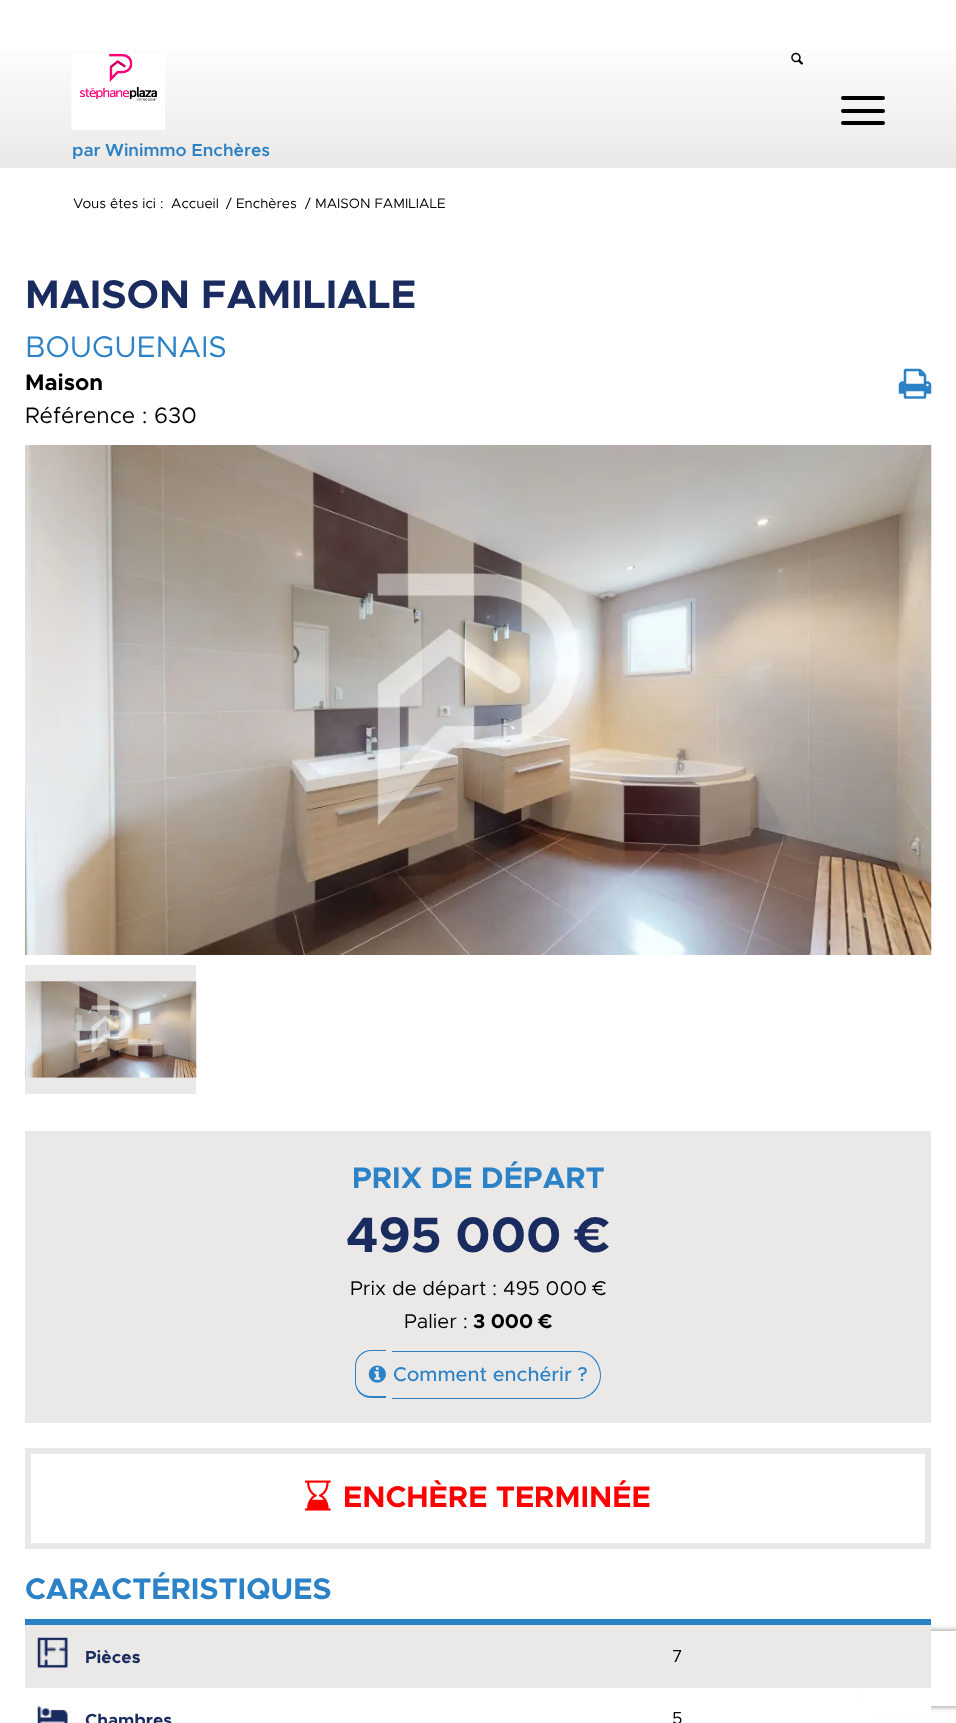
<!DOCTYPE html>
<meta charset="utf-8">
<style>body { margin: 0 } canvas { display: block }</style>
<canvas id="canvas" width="956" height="1723"></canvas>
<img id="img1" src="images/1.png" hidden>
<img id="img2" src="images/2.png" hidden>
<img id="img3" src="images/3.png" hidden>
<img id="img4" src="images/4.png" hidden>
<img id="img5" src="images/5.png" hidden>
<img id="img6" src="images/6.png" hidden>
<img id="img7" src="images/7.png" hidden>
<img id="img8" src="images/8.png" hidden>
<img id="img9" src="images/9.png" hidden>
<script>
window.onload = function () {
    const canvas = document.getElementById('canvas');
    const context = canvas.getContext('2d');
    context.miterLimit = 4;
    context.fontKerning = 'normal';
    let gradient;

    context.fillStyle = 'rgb(255, 255, 255)';
    context.fillRect(0, 0, 956, 1723);
    gradient = context.createLinearGradient(478, 168, 478, 36);
    gradient.addColorStop(0, 'rgb(235, 233, 231)');
    gradient.addColorStop(1, 'rgb(255, 255, 255)');
    context.fillStyle = gradient;
    context.fillRect(0, 50, 956, 118);
    context.drawImage(document.getElementById('img1'), 71, 53, 94, 77);
    context.drawImage(document.getElementById('img2'), 791, 52, 12, 13);
    context.fillStyle = 'rgb(0, 0, 0)';
    context.beginPath();
    context.roundRect(841, 109, 44, 4, 2);
    context.fill();
    context.beginPath();
    context.roundRect(841, 96, 44, 4, 2);
    context.fill();
    context.beginPath();
    context.roundRect(841, 121, 44, 4, 2);
    context.fill();
    context.drawImage(document.getElementById('img3'), 898, 368, 34, 31);
    context.drawImage(document.getElementById('img4'), 25, 445, 907, 510);
    context.fillStyle = 'rgb(235, 233, 231)';
    context.fillRect(25, 965, 171, 129);
    context.drawImage(document.getElementById('img5'), 25, 981, 172, 97);
    context.fillRect(25, 1131, 906, 292);
    context.fillStyle = 'rgb(44, 130, 199)';
    context.beginPath();
    context.moveTo(371, 1350);
    context.lineTo(386, 1350);
    context.lineTo(386, 1398);
    context.lineTo(371, 1398);
    context.bezierCurveTo(362, 1398, 355, 1391, 355, 1382);
    context.lineTo(355, 1366);
    context.bezierCurveTo(355, 1357, 362, 1350, 371, 1350);
    context.closePath();
    context.moveTo(371, 1351);
    context.lineTo(386, 1351);
    context.lineTo(386, 1396);
    context.lineTo(371, 1396);
    context.bezierCurveTo(363, 1396, 356, 1390, 356, 1382);
    context.lineTo(356, 1366);
    context.bezierCurveTo(356, 1358, 363, 1351, 371, 1351);
    context.closePath();
    context.fill('evenodd');
    context.drawImage(document.getElementById('img6'), 368, 1365, 18, 18);
    context.beginPath();
    context.moveTo(392, 1351);
    context.lineTo(578, 1351);
    context.bezierCurveTo(591, 1351, 601, 1362, 601, 1375);
    context.bezierCurveTo(601, 1388, 591, 1399, 578, 1399);
    context.lineTo(392, 1399);
    context.closePath();
    context.moveTo(392, 1352);
    context.lineTo(578, 1352);
    context.bezierCurveTo(590, 1352, 600, 1363, 600, 1375);
    context.bezierCurveTo(600, 1387, 590, 1398, 578, 1398);
    context.lineTo(392, 1398);
    context.closePath();
    context.fill('evenodd');
    context.strokeStyle = 'rgb(235, 233, 231)';
    context.lineWidth = 6;
    context.strokeRect(28, 1451, 900, 95);
    context.drawImage(document.getElementById('img7'), 305, 1480, 26, 31);
    context.save();
    context.beginPath();
    context.moveTo(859, 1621);
    context.lineTo(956, 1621);
    context.lineTo(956, 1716);
    context.lineTo(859, 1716);
    context.closePath();
    context.moveTo(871.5, 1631);
    context.lineTo(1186.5, 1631);
    context.bezierCurveTo(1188, 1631, 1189, 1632, 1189, 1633.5);
    context.lineTo(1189, 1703.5);
    context.bezierCurveTo(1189, 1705, 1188, 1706, 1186.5, 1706);
    context.lineTo(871.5, 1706);
    context.bezierCurveTo(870, 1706, 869, 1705, 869, 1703.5);
    context.lineTo(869, 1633.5);
    context.bezierCurveTo(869, 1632, 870, 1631, 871.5, 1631);
    context.closePath();
    context.clip('evenodd');
    context.fillStyle = 'rgb(128, 128, 128)';
    context.filter = 'blur(3px)';
    context.beginPath();
    context.roundRect(869, 1631, 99, 75, 2.5);
    context.fill();
    context.filter = 'none';
    context.restore();
    context.fillRect(25, 1619, 906, 6);
    context.fillStyle = 'rgb(235, 233, 231)';
    context.fillRect(25, 1625, 906, 63);
    context.drawImage(document.getElementById('img8'), 37, 1637, 31, 31);
    context.fillStyle = 'rgb(255, 255, 255)';
    context.fillRect(863, 1688, 68, 24);
    context.drawImage(document.getElementById('img9'), 37, 1706, 31, 17);
    context.font = '600 17.5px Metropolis';
    context.fillStyle = 'rgb(44, 130, 199)';
    context.fillText('par', 72, 156);
    context.fillText('Winimmo Enchères', 105, 156);
    context.font = '13.75px Metropolis';
    context.fillStyle = 'rgb(0, 0, 0)';
    context.fillText('Vous êtes ici :', 73, 208);
    context.fillText('Accueil', 171, 208);
    context.fillText('/', 226, 208);
    context.fillText('Enchères', 236, 208);
    context.fillText('/', 305, 208);
    context.fillText('MAISON FAMILIALE', 315, 208);
    context.font = 'bold 40px Metropolis';
    context.fillStyle = 'rgb(26, 43, 95)';
    context.fillText('MAISON FAMILIALE', 25, 308);
    context.font = '30px Metropolis';
    context.fillStyle = 'rgb(44, 130, 199)';
    context.fillText('BOUGUENAIS', 25, 357);
    context.font = 'bold 22.5px Metropolis';
    context.fillStyle = 'rgb(0, 0, 0)';
    context.fillText('Maison', 25, 390);
    context.font = '22.5px Metropolis';
    context.fillText('Référence : 630', 25, 423);
    context.font = 'bold 30px Metropolis';
    context.fillStyle = 'rgb(44, 130, 199)';
    context.fillText('PRIX DE DÉPART', 352, 1188);
    context.font = 'bold 50px Metropolis';
    context.fillStyle = 'rgb(26, 43, 95)';
    context.fillText('495 000 €', 346, 1252);
    context.font = '20px Metropolis';
    context.fillStyle = 'rgb(0, 0, 0)';
    context.fillText('Prix de départ : 495 000 €', 350, 1295);
    context.fillText('Palier :', 404, 1328);
    context.font = 'bold 20px Metropolis';
    context.fillText('3 000 €', 473, 1328);
    context.font = '500 20px Metropolis';
    context.fillStyle = 'rgb(44, 130, 199)';
    context.fillText('Comment enchérir ?', 393, 1381);
    context.font = 'bold 30px Metropolis';
    context.fillStyle = 'rgb(255, 0, 0)';
    context.fillText('ENCHÈRE TERMINÉE', 343, 1507);
    context.fillStyle = 'rgb(44, 130, 199)';
    context.fillText('CARACTÉRISTIQUES', 25, 1599);
    context.font = 'bold 17.5px Metropolis';
    context.fillStyle = 'rgb(26, 43, 95)';
    context.fillText('Pièces', 85, 1663);
    context.font = '17.5px Metropolis';
    context.fillStyle = 'rgb(0, 0, 0)';
    context.fillText('7', 672, 1662);
    context.font = 'bold 17.5px Metropolis';
    context.fillStyle = 'rgb(26, 43, 95)';
    context.fillText('Chambres', 85, 1726);
    context.font = '17.5px Metropolis';
    context.fillStyle = 'rgb(0, 0, 0)';
    context.fillText('5', 672, 1724);
};
</script>
